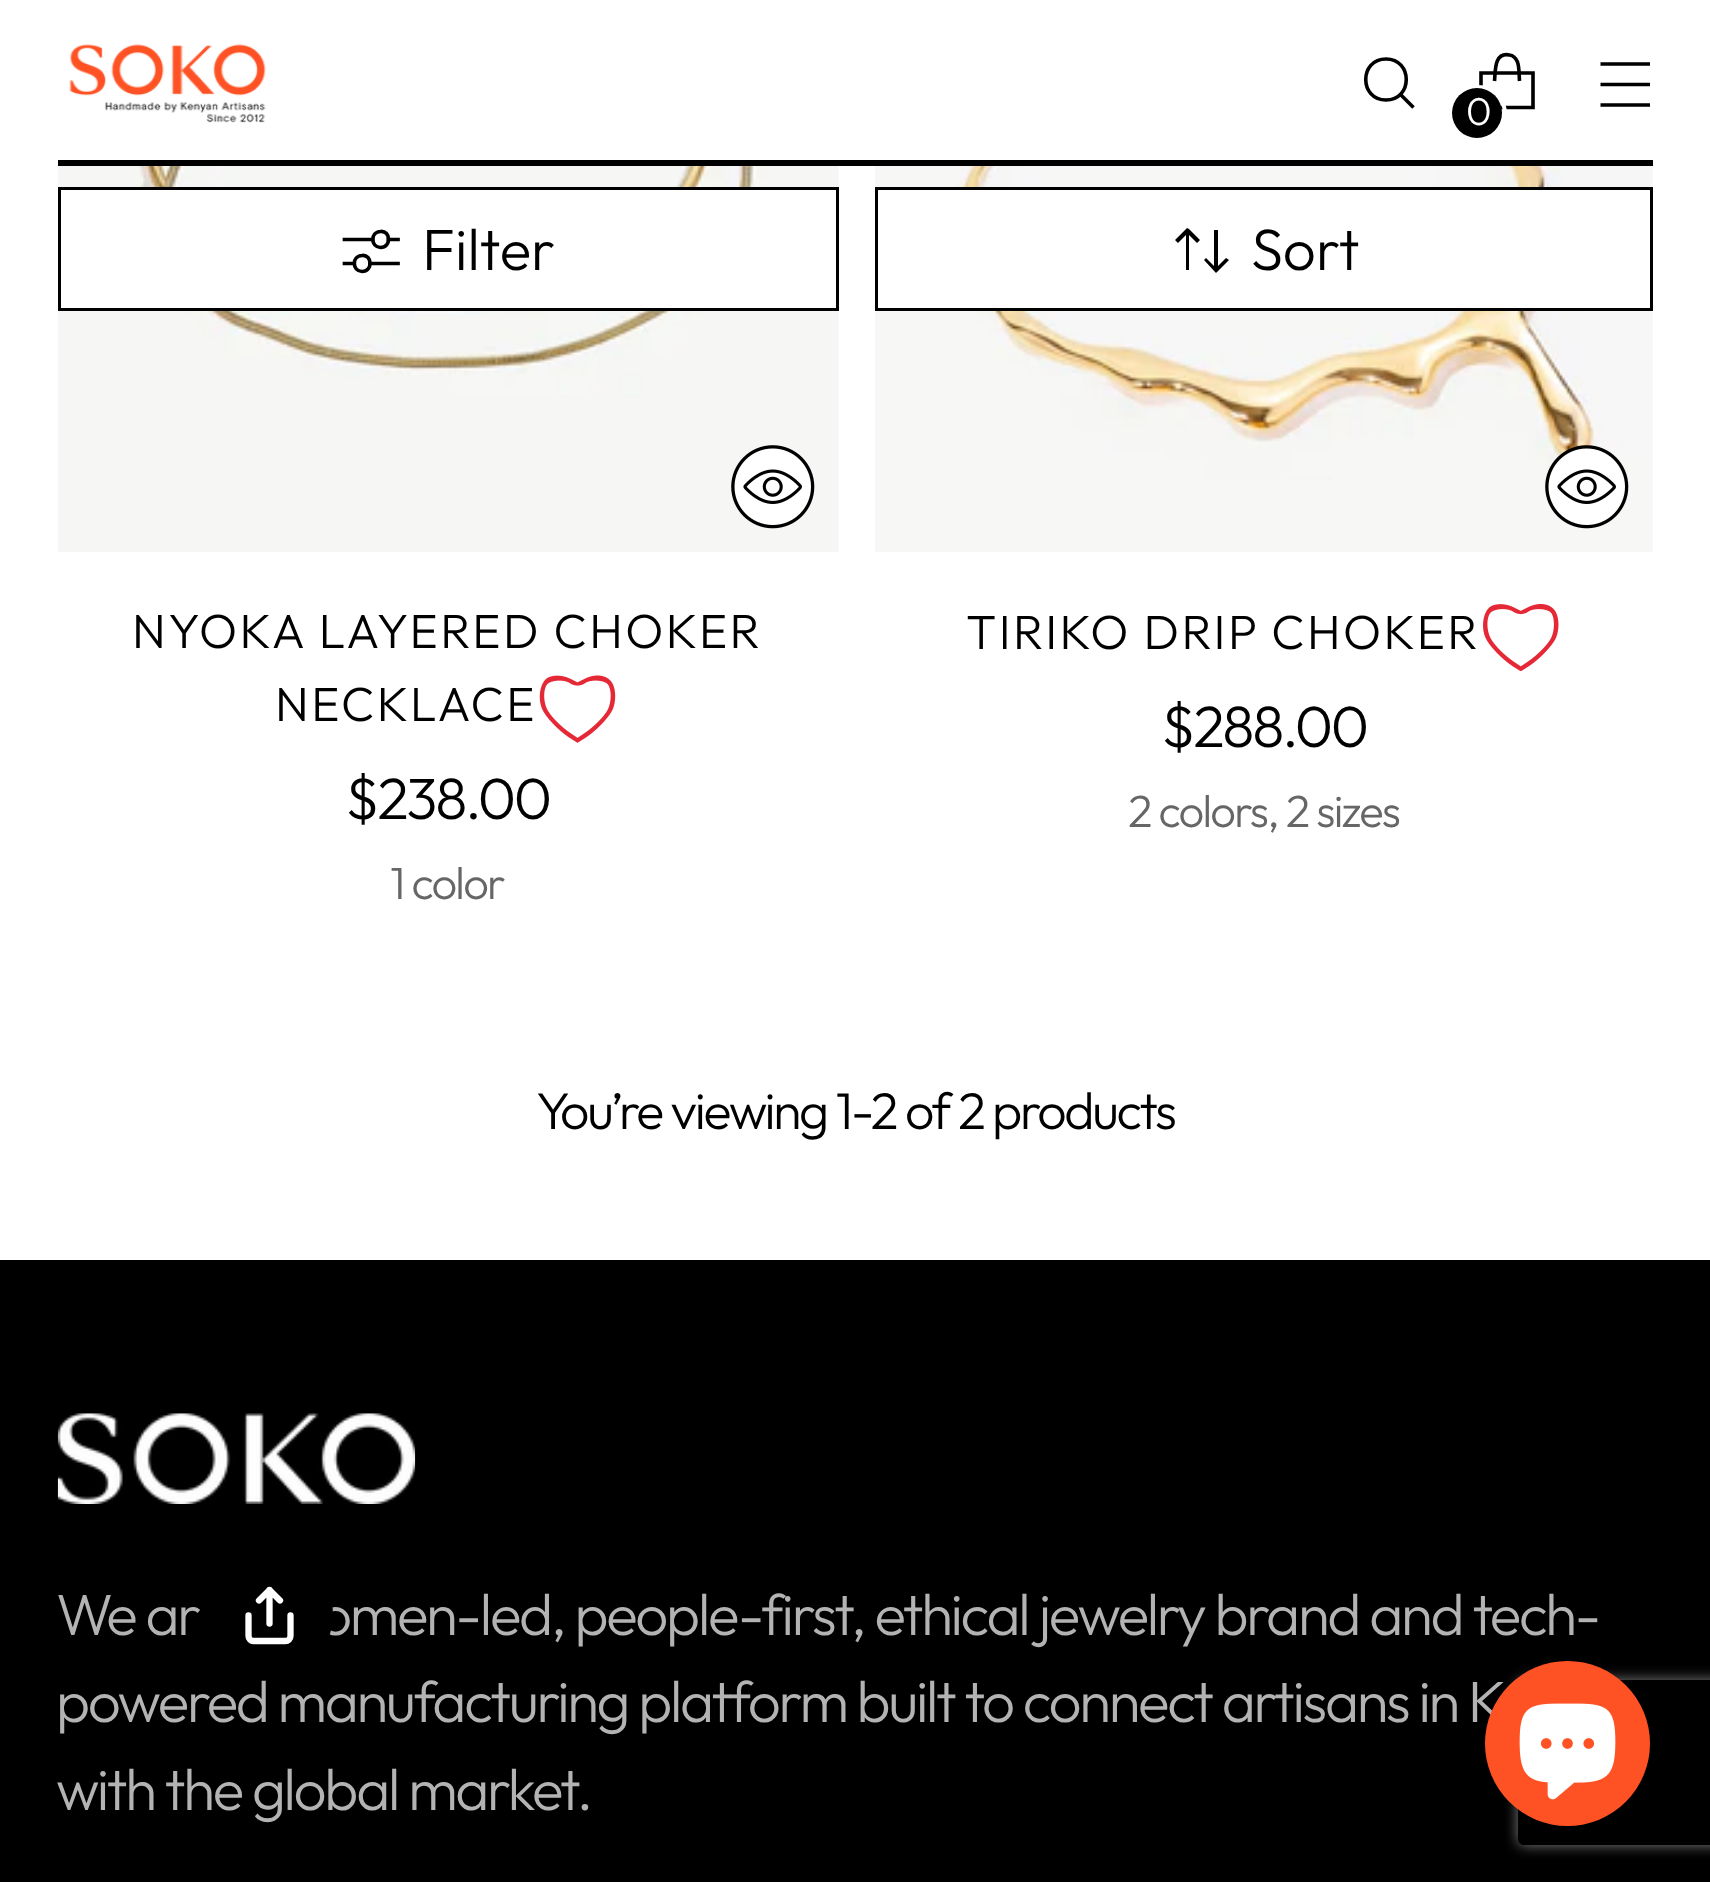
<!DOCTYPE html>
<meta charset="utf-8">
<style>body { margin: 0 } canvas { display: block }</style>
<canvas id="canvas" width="1710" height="1882"></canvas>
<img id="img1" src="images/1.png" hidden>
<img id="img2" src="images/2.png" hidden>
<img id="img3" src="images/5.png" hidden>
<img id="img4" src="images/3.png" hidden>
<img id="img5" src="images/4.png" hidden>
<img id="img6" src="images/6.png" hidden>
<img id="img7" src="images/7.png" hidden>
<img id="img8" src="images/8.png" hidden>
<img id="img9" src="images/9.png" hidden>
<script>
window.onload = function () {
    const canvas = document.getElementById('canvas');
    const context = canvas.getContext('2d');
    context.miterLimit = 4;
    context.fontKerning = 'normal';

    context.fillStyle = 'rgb(255, 255, 255)';
    context.fillRect(0, 0, 1710, 1882);
    context.fillStyle = 'rgb(0, 0, 0)';
    context.fillRect(58, 160, 1595, 6);
    context.drawImage(document.getElementById('img1'), 69, 44, 197, 79);
    context.beginPath();
    context.moveTo(1386, 100);
    context.bezierCurveTo(1413, 100, 1413, 59, 1386, 59);
    context.bezierCurveTo(1359, 59, 1359, 100, 1386, 100);
    context.closePath();
    context.strokeStyle = 'rgb(0, 0, 0)';
    context.lineWidth = 3.6;
    context.lineCap = 'round';
    context.stroke();
    context.beginPath();
    context.moveTo(1400.5, 94.5);
    context.lineTo(1413.5, 107.5);
    context.lineCap = 'butt';
    context.stroke();
    context.beginPath();
    context.moveTo(1600.5, 84.5);
    context.lineTo(1650, 84.5);
    context.moveTo(1600.5, 64);
    context.lineTo(1650, 64);
    context.moveTo(1600.5, 105);
    context.lineTo(1650, 105);
    context.stroke();
    context.beginPath();
    context.moveTo(1519.5, 81);
    context.bezierCurveTo(1519, 75, 1519.5, 68, 1517.5, 62);
    context.bezierCurveTo(1516, 58.5, 1513.5, 55.5, 1509.5, 55);
    context.bezierCurveTo(1494, 52, 1495.5, 71, 1494.5, 81);
    context.lineJoin = 'bevel';
    context.stroke();
    context.beginPath();
    context.moveTo(1533, 107.5);
    context.lineTo(1533, 73);
    context.lineTo(1481, 73);
    context.lineTo(1481, 107.5);
    context.closePath();
    context.lineJoin = 'miter';
    context.stroke();
    context.beginPath();
    context.arc(1478, 114, 27, 0, 2 * Math.PI);
    context.strokeStyle = 'rgb(255, 255, 255)';
    context.lineWidth = 4;
    context.stroke();
    context.beginPath();
    context.arc(1477, 113, 25, 0, 2 * Math.PI);
    context.fill();
    context.drawImage(document.getElementById('img2'), 58, 166, 781, 386);
    context.fillStyle = 'rgb(255, 255, 255)';
    context.beginPath();
    context.rect(59.5, 188.5, 778, 121);
    context.fill();
    context.strokeStyle = 'rgb(0, 0, 0)';
    context.lineWidth = 3;
    context.stroke();
    context.beginPath();
    context.moveTo(344.5, 263.5);
    context.lineTo(354, 263.5);
    context.moveTo(398, 263.5);
    context.lineTo(370, 263.5);
    context.lineWidth = 3.7;
    context.lineCap = 'square';
    context.lineJoin = 'round';
    context.stroke();
    context.beginPath();
    context.moveTo(362, 271.5);
    context.bezierCurveTo(373, 271.5, 372.5, 254.5, 362, 255.5);
    context.bezierCurveTo(351.5, 256, 352, 271, 362, 271.5);
    context.closePath();
    context.lineCap = 'round';
    context.lineJoin = 'miter';
    context.stroke();
    context.beginPath();
    context.moveTo(344.5, 239.5);
    context.lineTo(372.5, 239.5);
    context.moveTo(398, 239.5);
    context.lineTo(388.5, 239.5);
    context.lineCap = 'square';
    context.lineJoin = 'round';
    context.stroke();
    context.beginPath();
    context.moveTo(380.5, 247.5);
    context.bezierCurveTo(391.5, 247.5, 391, 230.5, 380.5, 231.5);
    context.bezierCurveTo(370, 232, 370.5, 247, 380.5, 247.5);
    context.closePath();
    context.lineCap = 'round';
    context.lineJoin = 'miter';
    context.stroke();
    context.drawImage(document.getElementById('img3'), 875, 166, 778, 386);
    context.beginPath();
    context.rect(876.5, 188.5, 775, 121);
    context.fill();
    context.lineWidth = 3;
    context.stroke();
    context.fillStyle = 'rgb(0, 0, 0)';
    context.beginPath();
    context.moveTo(1189, 229);
    context.lineTo(1187, 228);
    context.lineTo(1175, 240);
    context.lineTo(1178, 243);
    context.lineTo(1186, 235);
    context.lineTo(1186, 270);
    context.lineTo(1189, 270);
    context.lineTo(1189, 235);
    context.lineTo(1197, 243);
    context.lineTo(1200, 240);
    context.closePath();
    context.moveTo(1217, 272);
    context.lineTo(1216, 273);
    context.lineTo(1204, 260);
    context.lineTo(1206, 258);
    context.lineTo(1214, 266);
    context.lineTo(1214, 230);
    context.lineTo(1218, 230);
    context.lineTo(1218, 266);
    context.lineTo(1226, 258);
    context.lineTo(1229, 260);
    context.closePath();
    context.fill('evenodd');
    context.drawImage(document.getElementById('img4'), 731, 445, 84, 84);
    context.drawImage(document.getElementById('img5'), 539, 675, 77, 68);
    context.drawImage(document.getElementById('img6'), 1545, 445, 84, 84);
    context.drawImage(document.getElementById('img7'), 1483, 604, 76, 67);
    context.fillRect(0, 1260, 1710, 622);
    context.drawImage(document.getElementById('img8'), 57, 1413, 359, 91);
    context.fillStyle = 'rgba(0, 0, 0, 0.25)';
    context.filter = 'blur(19px)';
    context.beginPath();
    context.roundRect(206, 1568, 127, 126, 63);
    context.fill();
    context.filter = 'none';
    context.save();
    context.beginPath();
    context.moveTo(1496, 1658);
    context.lineTo(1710, 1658);
    context.lineTo(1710, 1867);
    context.lineTo(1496, 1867);
    context.closePath();
    context.moveTo(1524, 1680);
    context.lineTo(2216, 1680);
    context.bezierCurveTo(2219.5, 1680, 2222, 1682.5, 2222, 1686);
    context.lineTo(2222, 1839);
    context.bezierCurveTo(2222, 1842.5, 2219.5, 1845, 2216, 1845);
    context.lineTo(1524, 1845);
    context.bezierCurveTo(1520.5, 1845, 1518, 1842.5, 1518, 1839);
    context.lineTo(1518, 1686);
    context.bezierCurveTo(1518, 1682.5, 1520.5, 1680, 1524, 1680);
    context.closePath();
    context.clip('evenodd');
    context.fillStyle = 'rgb(128, 128, 128)';
    context.filter = 'blur(7px)';
    context.beginPath();
    context.roundRect(1518, 1680, 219, 165, 6);
    context.fill();
    context.filter = 'none';
    context.restore();
    context.letterSpacing = '-2.33px';
    context.font = '300 39px Outfit';
    context.fillStyle = 'rgb(255, 255, 255)';
    context.fillText('0', 1466, 125);
    context.letterSpacing = '0px';
    context.font = '300 58.3px Outfit';
    context.fillStyle = 'rgb(0, 0, 0)';
    context.fillText('Filter', 422, 270);
    context.fillText('Sort', 1251, 270);
    context.letterSpacing = '2.4px';
    context.font = '300 48px Outfit';
    context.fillText('NYOKA LAYERED CHOKER', 132, 648);
    context.fillText('NECKLACE', 275, 721);
    context.letterSpacing = '-2.33px';
    context.font = '300 58.3px Outfit';
    context.fillText('$238.00', 345, 819);
    context.letterSpacing = '-1.8px';
    context.font = '300 45.25px Outfit';
    context.fillStyle = 'rgb(102, 102, 102)';
    context.fillText('1 color', 390, 899);
    context.letterSpacing = '2.4px';
    context.font = '300 48px Outfit';
    context.fillStyle = 'rgb(0, 0, 0)';
    context.fillText('TIRIKO DRIP CHOKER', 966, 649);
    context.letterSpacing = '-2.33px';
    context.font = '300 58.3px Outfit';
    context.fillText('$288.00', 1161, 747);
    context.letterSpacing = '-1.8px';
    context.font = '300 45.25px Outfit';
    context.fillStyle = 'rgb(102, 102, 102)';
    context.fillText('2 colors, 2 sizes', 1128, 827);
    context.letterSpacing = '-2.33px';
    context.font = '300 51.75px Outfit';
    context.fillStyle = 'rgb(0, 0, 0)';
    context.fillText('You’re viewing 1-2 of 2', 536, 1129);
    context.fillText('products', 992, 1129);
    context.font = '300 58.3px Outfit';
    context.fillStyle = 'rgb(179, 179, 179)';
    context.fillText('We ar', 56, 1635);
    context.fillText('omen-led, people-first, ethical jewelry brand and tech-', 319, 1635);
    context.wordSpacing = '-0.25px';
    context.fillText('powered manufacturing platform built to connect artisans in K', 56, 1722);
    context.wordSpacing = '0px';
    context.fillText('with the global market.', 56, 1810);
    context.fillStyle = 'rgb(0, 0, 0)';
    context.beginPath();
    context.arc(269.5, 1614.5, 63.5, 0, 2 * Math.PI);
    context.fill();
    context.beginPath();
    context.moveTo(248.5, 1615.5);
    context.lineTo(248.5, 1636);
    context.bezierCurveTo(248.5, 1639, 251, 1641, 253.5, 1641);
    context.lineTo(285.5, 1641);
    context.bezierCurveTo(288, 1641, 290.5, 1639, 290.5, 1636);
    context.lineTo(290.5, 1615.5);
    context.moveTo(280, 1600.5);
    context.lineTo(269.5, 1590);
    context.lineTo(259, 1600.5);
    context.moveTo(269.5, 1590);
    context.lineTo(269.5, 1623.5);
    context.strokeStyle = 'rgb(255, 255, 255)';
    context.lineWidth = 6.3;
    context.lineJoin = 'round';
    context.stroke();
    context.fillStyle = 'rgb(255, 82, 36)';
    context.beginPath();
    context.arc(1567.5, 1743.5, 82.5, 0, 2 * Math.PI);
    context.fill();
    context.drawImage(document.getElementById('img9'), 1519, 1703, 97, 97);
};
</script>
